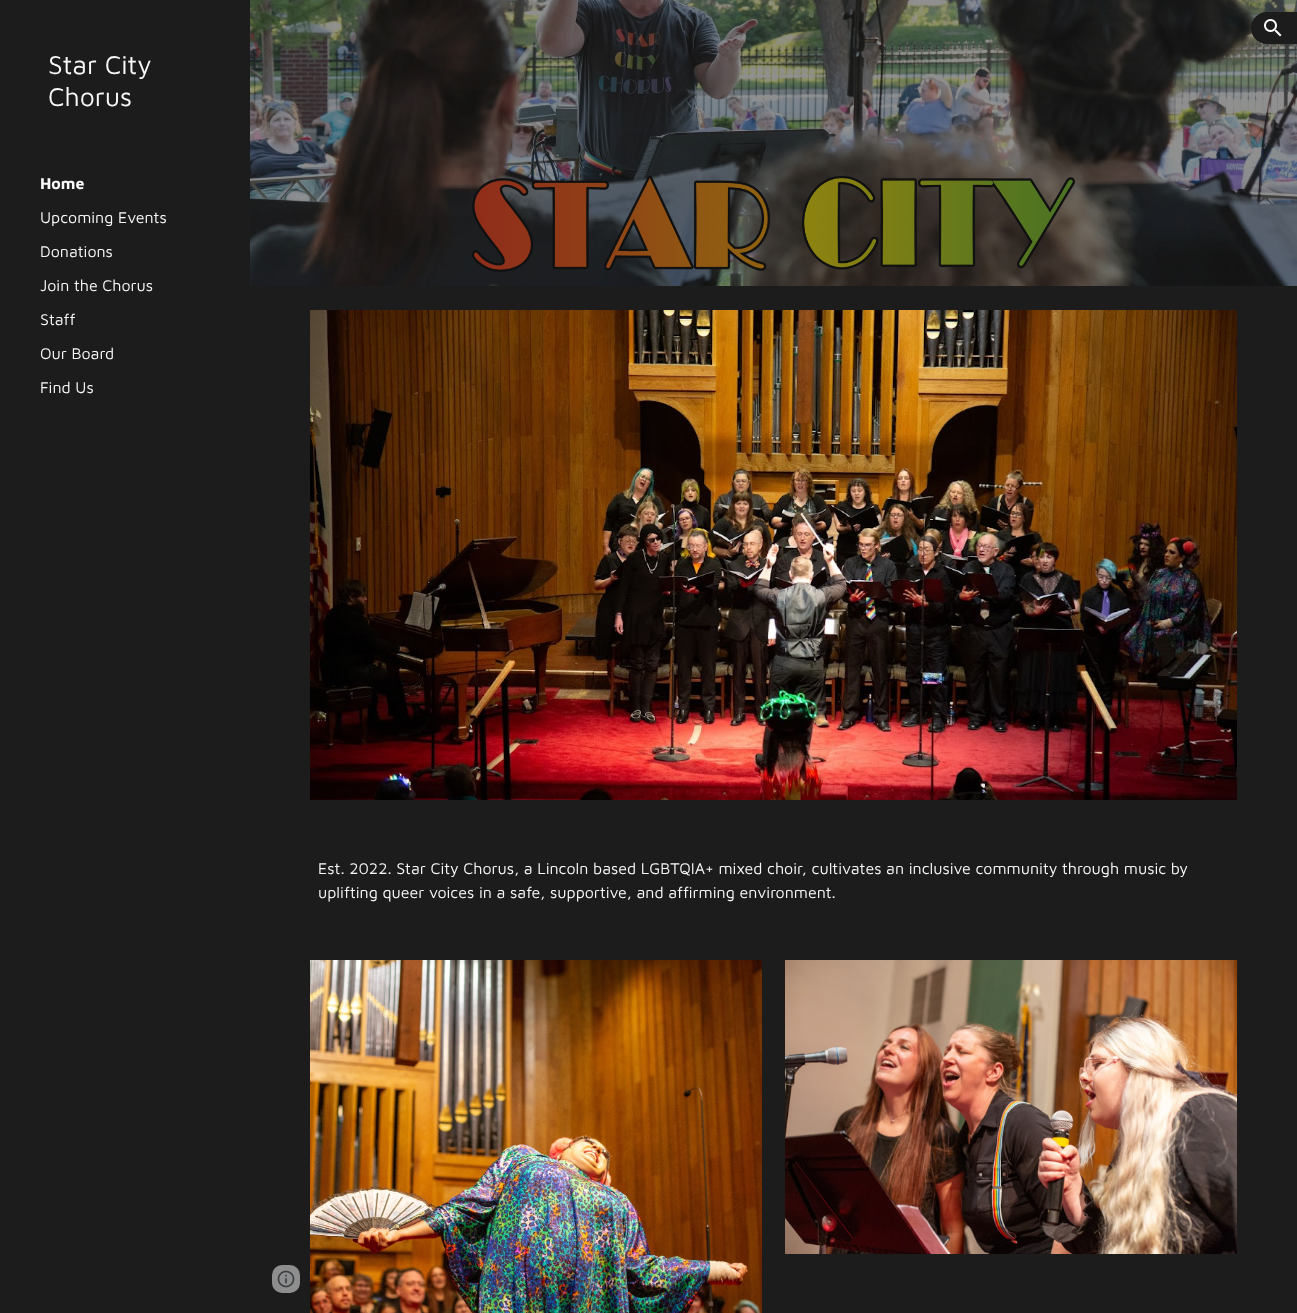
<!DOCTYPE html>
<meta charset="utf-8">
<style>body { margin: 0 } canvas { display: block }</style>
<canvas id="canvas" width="1297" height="1313"></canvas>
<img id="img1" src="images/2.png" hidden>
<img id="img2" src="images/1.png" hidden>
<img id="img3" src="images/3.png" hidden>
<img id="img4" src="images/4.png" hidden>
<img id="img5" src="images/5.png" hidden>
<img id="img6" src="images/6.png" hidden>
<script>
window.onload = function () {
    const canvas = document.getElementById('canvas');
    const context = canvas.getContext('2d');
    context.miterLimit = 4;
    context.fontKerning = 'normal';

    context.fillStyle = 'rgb(28, 28, 28)';
    context.fillRect(0, 0, 1297, 1313);
    context.drawImage(document.getElementById('img1'), 250, 0, 1047, 286);
    context.beginPath();
    context.roundRect(1251, 12, 46, 32, [16, 0, 0, 16]);
    context.fill();
    context.drawImage(document.getElementById('img2'), 1264, 19, 18, 18);
    context.drawImage(document.getElementById('img3'), 310, 310, 927, 490);
    context.drawImage(document.getElementById('img4'), 310, 960, 452, 353);
    context.drawImage(document.getElementById('img5'), 785, 960, 452, 294);
    context.fillStyle = 'rgb(142, 142, 142)';
    context.beginPath();
    context.roundRect(272, 1265, 28, 28, 10);
    context.fill();
    context.drawImage(document.getElementById('img6'), 277, 1270, 18, 18);
    context.font = '26.5px Maven Pro';
    context.fillStyle = 'rgb(249, 249, 249)';
    context.fillText('Star City', 48, 74);
    context.fillText('Chorus', 48, 106);
    context.font = 'bold 16px Maven Pro';
    context.fillText('Home', 40, 189);
    context.save();
    context.beginPath();
    context.rect(36, 208, 202, 18);
    context.clip();
    context.font = '16px Maven Pro';
    context.fillText('Upcoming Events', 40, 223);
    context.restore();
    context.font = '16px Maven Pro';
    context.fillText('Donations', 40, 257);
    context.fillText('Join the Chorus', 40, 291);
    context.fillText('Staff', 40, 325);
    context.fillText('Our Board', 40, 359);
    context.fillText('Find Us', 40, 393);
    context.fillText('Est. 2022. Star City Chorus, a Lincoln based LGBTQIA+ mixed choir, cultivates an inclusive community through music by', 318, 874);
    context.fillText('uplifting queer voices in a safe, supportive, and affirming environment.', 318, 898);
};
</script>
